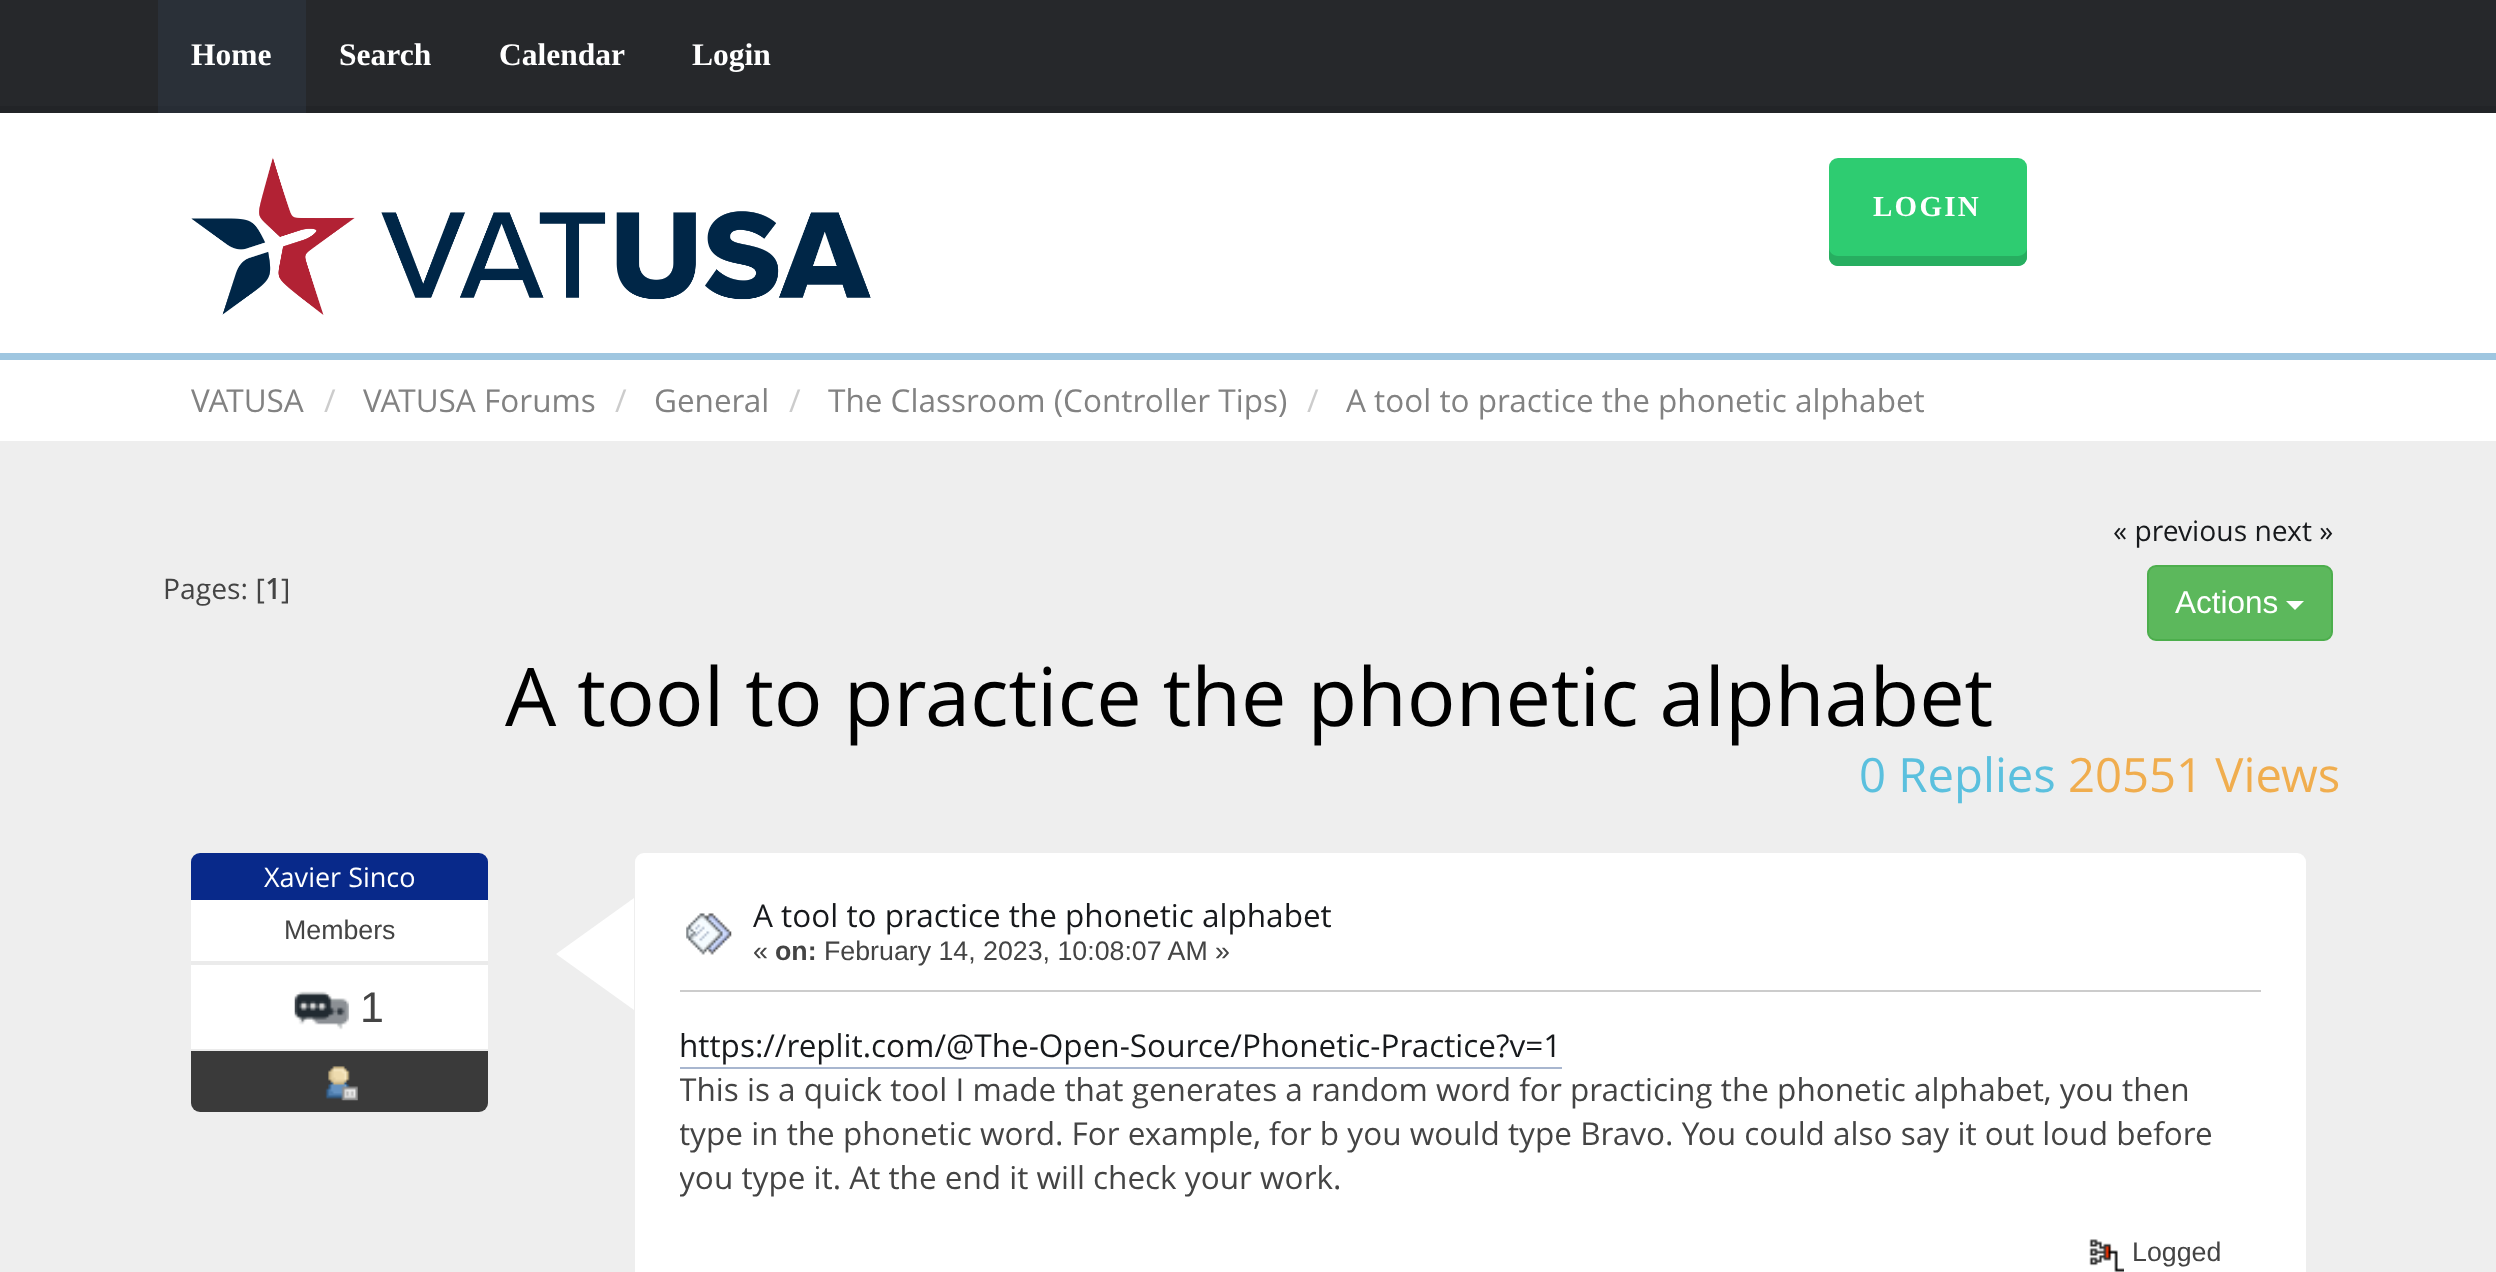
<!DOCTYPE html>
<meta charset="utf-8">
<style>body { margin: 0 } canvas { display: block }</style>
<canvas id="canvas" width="2496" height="1272"></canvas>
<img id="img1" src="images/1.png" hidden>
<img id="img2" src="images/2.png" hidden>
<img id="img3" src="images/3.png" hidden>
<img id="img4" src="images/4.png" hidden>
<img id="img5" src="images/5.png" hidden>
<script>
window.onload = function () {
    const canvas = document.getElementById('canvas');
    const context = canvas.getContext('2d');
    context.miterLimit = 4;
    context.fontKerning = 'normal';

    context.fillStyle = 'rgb(238, 238, 238)';
    context.fillRect(0, 0, 2496, 1272);
    context.fillStyle = 'rgb(38, 40, 43)';
    context.fillRect(0, 0, 2496, 106);
    context.fillStyle = 'rgb(34, 36, 39)';
    context.fillRect(0, 106, 2496, 7);
    context.fillStyle = 'rgb(42, 48, 56)';
    context.fillRect(158, 0, 148, 106);
    context.fillStyle = 'rgb(39, 45, 53)';
    context.fillRect(158, 106, 148, 7);
    context.fillStyle = 'rgb(255, 255, 255)';
    context.fillRect(0, 113, 2496, 240);
    context.fillStyle = 'rgb(159, 198, 224)';
    context.fillRect(0, 353, 2496, 7);
    context.drawImage(document.getElementById('img1'), 191, 157, 680, 158);
    context.fillStyle = 'rgb(46, 204, 113)';
    context.beginPath();
    context.roundRect(1829, 158, 198, 108, 9);
    context.fill();
    context.fillStyle = 'rgb(39, 174, 96)';
    context.beginPath();
    context.moveTo(1829, 248);
    context.lineTo(1829, 257);
    context.bezierCurveTo(1829, 262, 1833, 266, 1838, 266);
    context.lineTo(2018, 266);
    context.bezierCurveTo(2023, 266, 2027, 262, 2027, 257);
    context.lineTo(2027, 248);
    context.bezierCurveTo(2027, 252, 2023, 256, 2018, 256);
    context.lineTo(1838, 256);
    context.bezierCurveTo(1833, 256, 1829, 252, 1829, 248);
    context.closePath();
    context.fill();
    context.fillStyle = 'rgb(255, 255, 255)';
    context.fillRect(0, 360, 2496, 81);
    context.fillStyle = 'rgb(92, 184, 92)';
    context.beginPath();
    context.roundRect(2148, 566, 184, 74, 8);
    context.fill();
    context.strokeStyle = 'rgb(76, 174, 76)';
    context.lineWidth = 2;
    context.stroke();
    context.fillStyle = 'rgb(255, 255, 255)';
    context.beginPath();
    context.moveTo(2286, 601);
    context.lineTo(2304, 601);
    context.lineTo(2295, 610);
    context.closePath();
    context.fill();
    context.fillStyle = 'rgb(8, 41, 138)';
    context.beginPath();
    context.roundRect(191, 853, 297, 47, [9, 9, 0, 0]);
    context.fill();
    context.fillStyle = 'rgb(255, 255, 255)';
    context.fillRect(191, 900, 297, 61);
    context.fillStyle = 'rgb(235, 235, 235)';
    context.fillRect(191, 961, 297, 4);
    context.fillStyle = 'rgb(255, 255, 255)';
    context.fillRect(191, 965, 297, 84);
    context.fillStyle = 'rgb(235, 235, 235)';
    context.fillRect(191, 1049, 297, 2);
    context.drawImage(document.getElementById('img2'), 294, 991, 55, 39);
    context.fillStyle = 'rgb(58, 58, 58)';
    context.beginPath();
    context.roundRect(191, 1051, 297, 61, [0, 0, 9, 9]);
    context.fill();
    context.drawImage(document.getElementById('img3'), 325, 1066, 33, 35);
    context.fillStyle = 'rgb(255, 255, 255)';
    context.beginPath();
    context.roundRect(635, 853, 1671, 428, 9);
    context.fill();
    context.beginPath();
    context.moveTo(634, 898);
    context.lineTo(634, 1010);
    context.lineTo(556, 954);
    context.closePath();
    context.fill();
    context.drawImage(document.getElementById('img4'), 686, 913, 46, 42);
    context.fillStyle = 'rgb(204, 204, 204)';
    context.fillRect(680, 990, 1581, 2);
    context.fillStyle = 'rgb(168, 182, 207)';
    context.fillRect(680, 1067, 882, 2);
    context.drawImage(document.getElementById('img5'), 2089, 1239, 35, 33);
    context.font = 'bold 31.5px Liberation Serif';
    context.fillStyle = 'rgb(255, 255, 255)';
    context.fillText('Home', 191, 65);
    context.fillText('Search', 339, 65);
    context.fillText('Calendar', 499, 65);
    context.fillText('Login', 692, 65);
    context.letterSpacing = '2.25px';
    context.font = 'bold 29px Liberation Serif';
    context.fillText('LOGIN', 1873, 216);
    context.letterSpacing = '0px';
    context.font = '31.5px Open Sans';
    context.fillStyle = 'rgb(130, 130, 130)';
    context.fillText('VATUSA', 191, 412);
    context.fillStyle = 'rgb(204, 204, 204)';
    context.fillText('/', 324, 412);
    context.fillStyle = 'rgb(130, 130, 130)';
    context.fillText('VATUSA Forums', 363, 412);
    context.fillStyle = 'rgb(204, 204, 204)';
    context.fillText('/', 615, 412);
    context.fillStyle = 'rgb(130, 130, 130)';
    context.fillText('General', 654, 412);
    context.fillStyle = 'rgb(204, 204, 204)';
    context.fillText('/', 789, 412);
    context.fillStyle = 'rgb(130, 130, 130)';
    context.fillText('The Classroom (Controller Tips)', 828, 412);
    context.fillStyle = 'rgb(204, 204, 204)';
    context.fillText('/', 1307, 412);
    context.fillStyle = 'rgb(130, 130, 130)';
    context.fillText('A tool to practice the phonetic alphabet', 1346, 412);
    context.font = '28.25px Open Sans';
    context.fillStyle = 'rgb(23, 25, 28)';
    context.fillText('« previous next »', 2113, 541);
    context.fillStyle = 'rgb(68, 68, 68)';
    context.fillText('Pages: [', 163, 599);
    context.font = 'bold 28.25px Open Sans';
    context.fillText('1', 265, 599);
    context.font = '28.25px Open Sans';
    context.fillText(']', 281, 599);
    context.font = '31.5px Liberation Sans';
    context.fillStyle = 'rgb(255, 255, 255)';
    context.fillText('Actions', 2175, 613);
    context.font = '81px Open Sans';
    context.fillStyle = 'rgb(0, 0, 0)';
    context.fillText('A tool to practice the phonetic alphabet', 505, 726);
    context.font = '47.25px Open Sans';
    context.fillStyle = 'rgb(91, 192, 222)';
    context.fillText('0 Replies', 1859, 792);
    context.fillStyle = 'rgb(240, 173, 78)';
    context.fillText('20551 Views', 2068, 792);
    context.font = '27px Open Sans';
    context.fillStyle = 'rgb(255, 255, 255)';
    context.fillText('Xavier Sinco', 264, 887);
    context.font = '26.75px Liberation Sans';
    context.fillStyle = 'rgb(68, 68, 68)';
    context.fillText('Members', 284, 939);
    context.font = '43px Liberation Sans';
    context.fillText('1', 360, 1022);
    context.font = '31.5px Open Sans';
    context.fillStyle = 'rgb(23, 25, 28)';
    context.fillText('A tool to practice the phonetic alphabet', 753, 927);
    context.font = '26.75px Liberation Sans';
    context.fillStyle = 'rgb(68, 68, 68)';
    context.fillText('«', 753, 960);
    context.font = 'bold 26.75px Liberation Sans';
    context.fillText('on:', 775, 960);
    context.font = '26.75px Liberation Sans';
    context.fillText('February 14, 2023, 10:08:07 AM »', 824, 960);
    context.font = '31.5px Open Sans';
    context.fillStyle = 'rgb(23, 25, 28)';
    context.fillText('https://replit.com/@The-Open-Source/Phonetic-Practice?v=1', 679, 1057);
    context.save();
    context.beginPath();
    context.rect(680, 986, 1581, 249);
    context.clip();
    context.fillStyle = 'rgb(68, 68, 68)';
    context.fillText('This is a quick tool I made that generates a random word for practicing the phonetic alphabet, you then', 679, 1101);
    context.fillText('type in the phonetic word. For example, for b you would type Bravo. You could also say it out loud before', 679, 1145);
    context.fillText('you type it. At the end it will check your work.', 679, 1189);
    context.restore();
    context.font = '26.75px Liberation Sans';
    context.fillStyle = 'rgb(68, 68, 68)';
    context.fillText('Logged', 2132, 1261);
};
</script>
